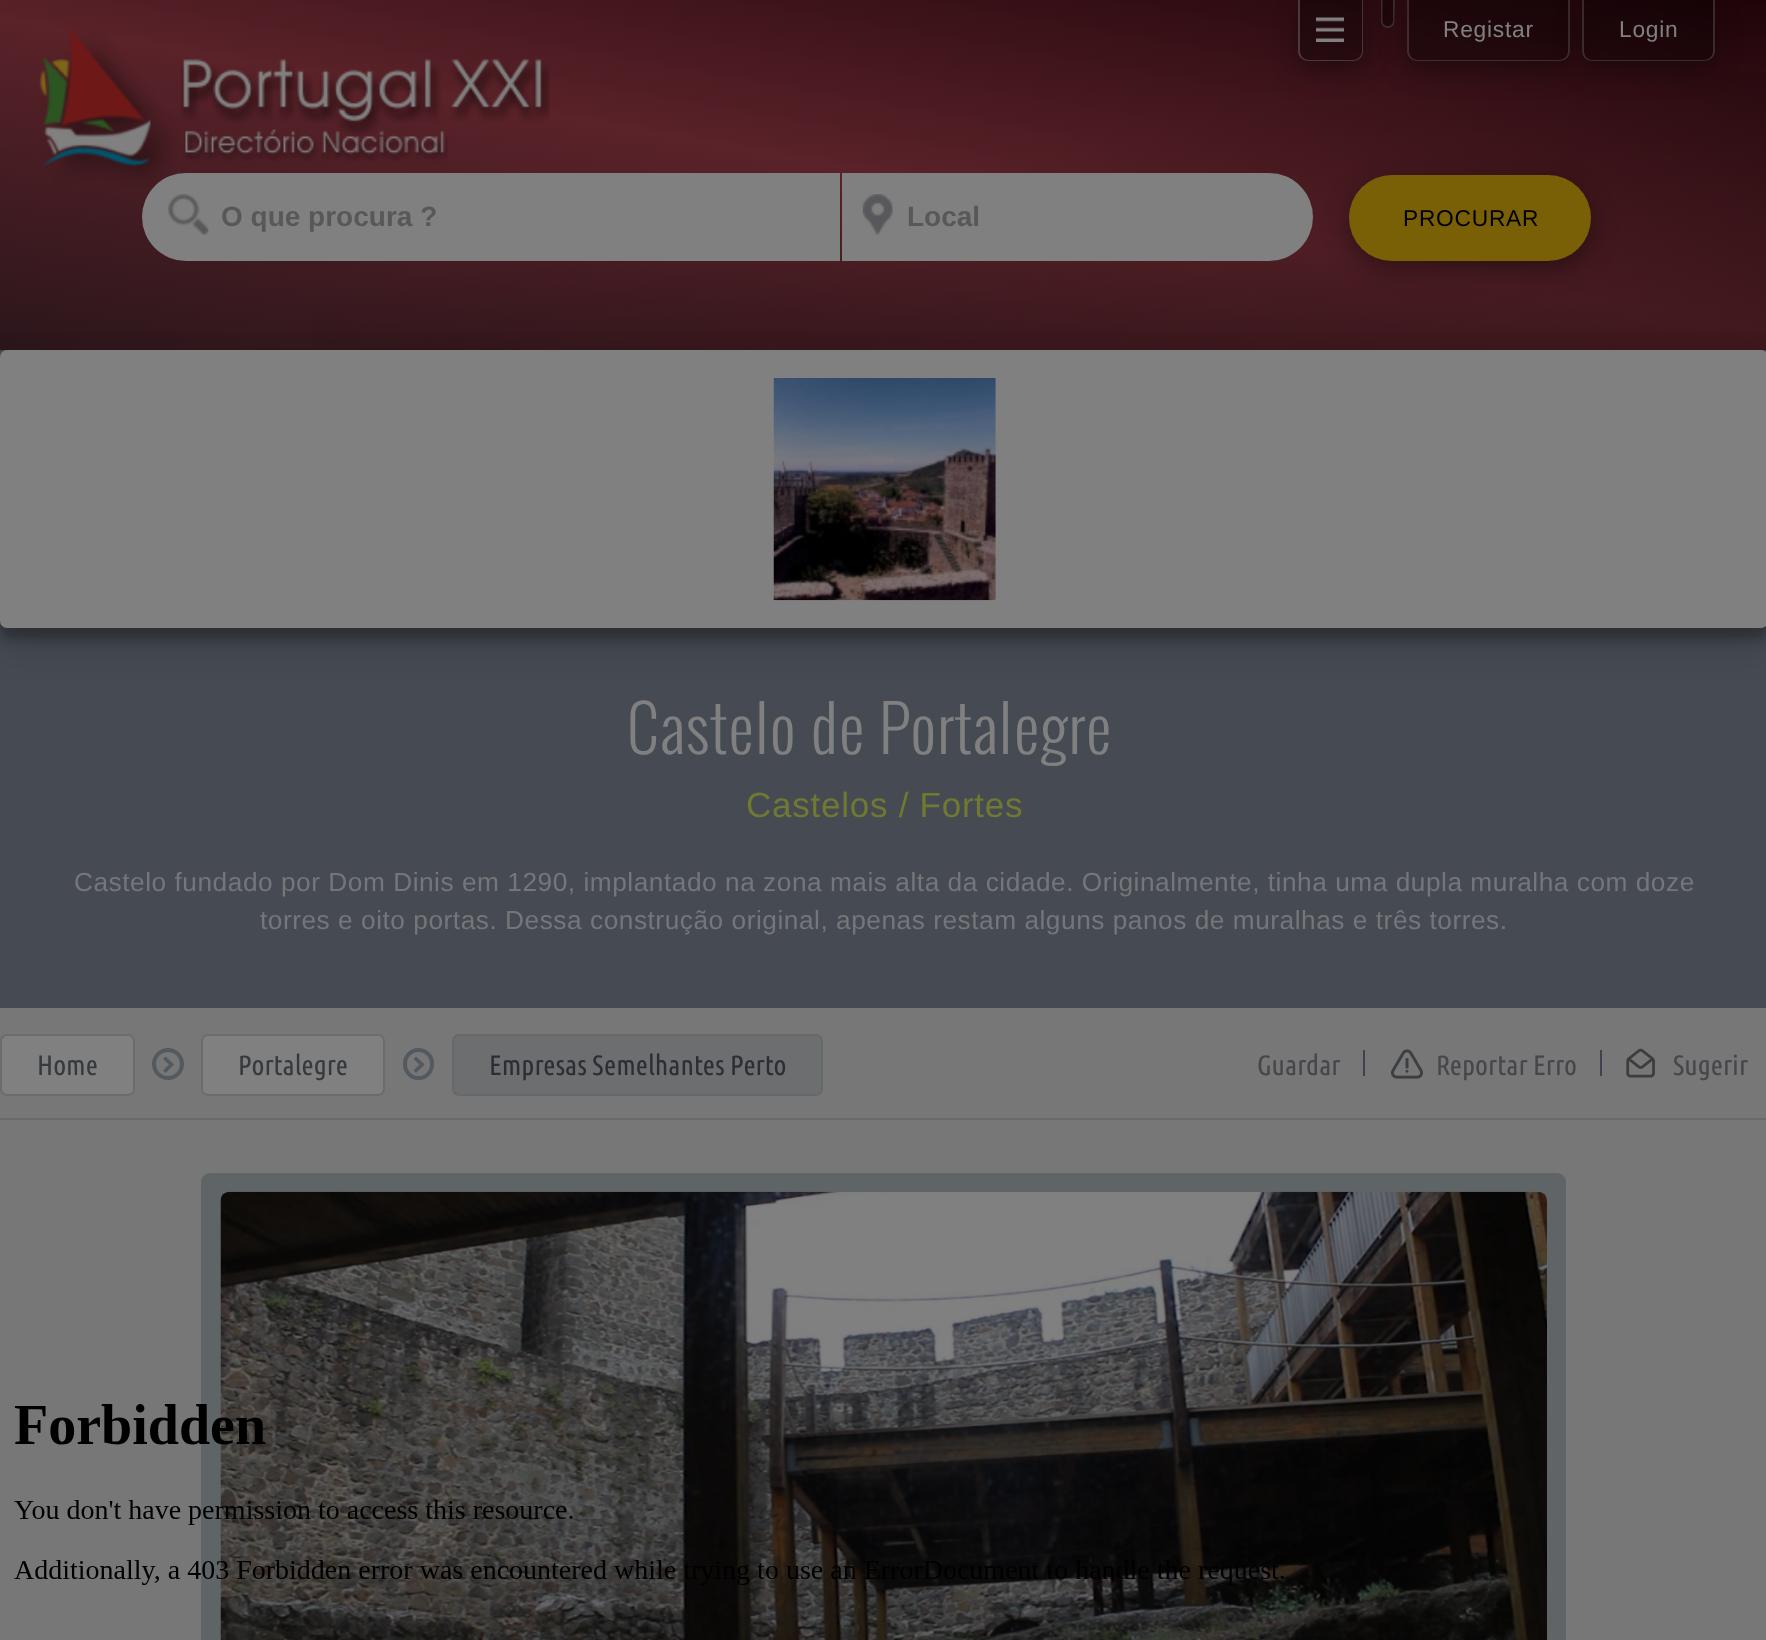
<!DOCTYPE html>
<meta charset="utf-8">
<style>body { margin: 0 } canvas { display: block }</style>
<canvas id="canvas" width="1766" height="1640"></canvas>
<img id="img1" src="images/1.png" hidden>
<img id="img2" src="images/2.png" hidden>
<img id="img3" src="images/3.png" hidden>
<img id="img4" src="images/4.png" hidden>
<img id="img5" src="images/5.png" hidden>
<img id="img6" src="images/6.png" hidden>
<img id="img7" src="images/7.png" hidden>
<img id="img8" src="images/8.png" hidden>
<img id="img9" src="images/9.png" hidden>
<img id="img10" src="images/10.png" hidden>
<script>
window.onload = function () {
    const canvas = document.getElementById('canvas');
    const context = canvas.getContext('2d');
    context.miterLimit = 4;
    context.fontKerning = 'normal';
    let gradient;

    context.fillStyle = 'rgb(119, 119, 119)';
    context.fillRect(0, 0, 1766, 1640);
    gradient = context.createLinearGradient(940, -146, 827, 496);
    gradient.addColorStop(0, 'rgb(30, 4, 9)');
    gradient.addColorStop(0.5, 'rgb(90, 34, 41)');
    gradient.addColorStop(1, 'rgb(43, 22, 27)');
    context.fillStyle = gradient;
    context.fillRect(0, 0, 1766, 350);
    gradient = context.createLinearGradient(950, 512, 817, -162);
    gradient.addColorStop(0, 'rgba(0, 0, 0, 0.3)');
    gradient.addColorStop(0.5, 'rgba(0, 0, 0, 0)');
    context.fillStyle = gradient;
    context.fillRect(312, 72, 1454, 278);
    context.save();
    context.beginPath();
    context.moveTo(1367, 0);
    context.lineTo(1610, 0);
    context.lineTo(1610, 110);
    context.lineTo(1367, 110);
    context.closePath();
    context.moveTo(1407, 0);
    context.lineTo(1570, 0);
    context.lineTo(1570, 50);
    context.bezierCurveTo(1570, 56, 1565, 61, 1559, 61);
    context.lineTo(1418, 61);
    context.bezierCurveTo(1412, 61, 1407, 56, 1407, 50);
    context.closePath();
    context.clip('evenodd');
    context.fillStyle = 'rgba(0, 0, 0, 0.35)';
    context.filter = 'blur(13px)';
    context.beginPath();
    context.roundRect(1407, 9, 163, 61, 11);
    context.fill();
    context.filter = 'none';
    context.restore();
    context.fillStyle = 'rgba(0, 0, 0, 0.3)';
    context.beginPath();
    context.roundRect(1381, 0, 14, 28, [0, 0, 7, 7]);
    context.fill();
    context.fillStyle = 'rgba(128, 128, 128, 0.3)';
    context.beginPath();
    context.moveTo(1381, 0);
    context.lineTo(1395, 0);
    context.lineTo(1394.5, 22.5);
    context.bezierCurveTo(1393, 30.5, 1381, 29.5, 1381, 21);
    context.closePath();
    context.moveTo(1382.5, 0);
    context.lineTo(1393, 0);
    context.lineTo(1393, 21);
    context.bezierCurveTo(1393, 24, 1390.5, 26, 1388, 26);
    context.bezierCurveTo(1385, 26, 1382.5, 24, 1382.5, 21);
    context.closePath();
    context.fill('evenodd');
    context.save();
    context.beginPath();
    context.moveTo(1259, 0);
    context.lineTo(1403, 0);
    context.lineTo(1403, 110);
    context.lineTo(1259, 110);
    context.closePath();
    context.moveTo(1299, 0);
    context.lineTo(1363, 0);
    context.lineTo(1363, 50);
    context.bezierCurveTo(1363, 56, 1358, 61, 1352, 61);
    context.lineTo(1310, 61);
    context.bezierCurveTo(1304, 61, 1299, 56, 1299, 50);
    context.closePath();
    context.clip('evenodd');
    context.fillStyle = 'rgba(0, 0, 0, 0.35)';
    context.filter = 'blur(13px)';
    context.beginPath();
    context.roundRect(1299, 9, 64, 61, 11);
    context.fill();
    context.filter = 'none';
    context.restore();
    context.fillStyle = 'rgba(0, 0, 0, 0.3)';
    context.beginPath();
    context.roundRect(1299, 0, 64, 61, [0, 0, 11, 11]);
    context.fill();
    context.drawImage(document.getElementById('img1'), 1316, 17, 28, 25);
    context.fillStyle = 'rgba(128, 128, 128, 0.4)';
    context.beginPath();
    context.moveTo(1298, 0);
    context.lineTo(1363, 0);
    context.lineTo(1363, 51);
    context.bezierCurveTo(1363, 57, 1359, 61, 1353, 61);
    context.lineTo(1309, 61);
    context.bezierCurveTo(1303, 61, 1298, 57, 1298, 51);
    context.closePath();
    context.moveTo(1300, 0);
    context.lineTo(1362, 0);
    context.lineTo(1362, 51);
    context.bezierCurveTo(1362, 56, 1358, 60, 1353, 60);
    context.lineTo(1309, 60);
    context.bezierCurveTo(1304, 60, 1300, 56, 1300, 51);
    context.closePath();
    context.fill('evenodd');
    context.fillStyle = 'rgba(0, 0, 0, 0.3)';
    context.beginPath();
    context.roundRect(1407, 0, 163, 61, [0, 0, 11, 11]);
    context.fill();
    context.fillStyle = 'rgba(128, 128, 128, 0.3)';
    context.beginPath();
    context.moveTo(1407, 0);
    context.lineTo(1570, 0);
    context.lineTo(1570, 51);
    context.bezierCurveTo(1570, 57, 1565, 61, 1559, 61);
    context.lineTo(1418, 61);
    context.bezierCurveTo(1412, 61, 1407, 57, 1407, 51);
    context.closePath();
    context.moveTo(1409, 0);
    context.lineTo(1568, 0);
    context.lineTo(1568, 51);
    context.bezierCurveTo(1568, 56, 1564, 60, 1559, 60);
    context.lineTo(1418, 60);
    context.bezierCurveTo(1413, 60, 1409, 56, 1409, 51);
    context.closePath();
    context.fill('evenodd');
    context.save();
    context.beginPath();
    context.moveTo(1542, 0);
    context.lineTo(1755, 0);
    context.lineTo(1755, 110);
    context.lineTo(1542, 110);
    context.closePath();
    context.moveTo(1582, 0);
    context.lineTo(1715, 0);
    context.lineTo(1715, 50);
    context.bezierCurveTo(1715, 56, 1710, 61, 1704, 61);
    context.lineTo(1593, 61);
    context.bezierCurveTo(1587, 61, 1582, 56, 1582, 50);
    context.closePath();
    context.clip('evenodd');
    context.fillStyle = 'rgba(0, 0, 0, 0.35)';
    context.filter = 'blur(13px)';
    context.beginPath();
    context.roundRect(1582, 9, 133, 61, 11);
    context.fill();
    context.filter = 'none';
    context.restore();
    context.fillStyle = 'rgba(0, 0, 0, 0.3)';
    context.beginPath();
    context.roundRect(1582, 0, 133, 61, [0, 0, 11, 11]);
    context.fill();
    context.fillStyle = 'rgba(128, 128, 128, 0.3)';
    context.beginPath();
    context.moveTo(1582, 0);
    context.lineTo(1715, 0);
    context.lineTo(1715, 51);
    context.bezierCurveTo(1715, 57, 1710, 61, 1704, 61);
    context.lineTo(1592, 61);
    context.bezierCurveTo(1587, 61, 1582, 57, 1582, 51);
    context.closePath();
    context.moveTo(1584, 0);
    context.lineTo(1713, 0);
    context.lineTo(1713, 51);
    context.bezierCurveTo(1713, 56, 1709, 60, 1704, 60);
    context.lineTo(1592, 60);
    context.bezierCurveTo(1588, 60, 1584, 56, 1584, 51);
    context.closePath();
    context.fill('evenodd');
    context.drawImage(document.getElementById('img2'), 38, 27, 512, 160);
    context.fillStyle = 'rgb(128, 128, 128)';
    context.beginPath();
    context.roundRect(142, 173, 698, 88, [44, 0, 0, 44]);
    context.fill();
    context.drawImage(document.getElementById('img3'), 168, 194, 41, 41);
    context.fillStyle = 'rgba(0, 0, 0, 0.35)';
    context.filter = 'blur(13px)';
    context.beginPath();
    context.roundRect(1349, 184, 242, 86, 43);
    context.fill();
    context.filter = 'none';
    context.fillStyle = 'rgb(128, 128, 128)';
    context.beginPath();
    context.roundRect(842, 173, 471, 88, [0, 44, 44, 0]);
    context.fill();
    context.drawImage(document.getElementById('img4'), 862, 194, 31, 41);
    context.fillStyle = 'rgb(121, 96, 7)';
    context.beginPath();
    context.roundRect(1349, 175, 242, 86, 43);
    context.fill();
    context.fillStyle = 'rgb(70, 75, 83)';
    context.fillRect(0, 350, 1766, 658);
    context.fillStyle = 'rgba(0, 0, 0, 0.23)';
    context.filter = 'blur(5px)';
    context.beginPath();
    context.roundRect(0, 361, 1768, 278, 7);
    context.fill();
    context.filter = 'none';
    context.fillStyle = 'rgba(0, 0, 0, 0.19)';
    context.filter = 'blur(17.5px)';
    context.beginPath();
    context.roundRect(0, 368, 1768, 278, 7);
    context.fill();
    context.filter = 'none';
    context.fillStyle = 'rgb(128, 128, 128)';
    context.beginPath();
    context.roundRect(0, 350, 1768, 278, 7);
    context.fill();
    context.drawImage(document.getElementById('img5'), 773, 378, 223, 223);
    context.fillStyle = 'rgb(105, 106, 108)';
    context.fillRect(0, 1118, 1766, 2);
    context.fillStyle = 'rgb(128, 128, 128)';
    context.beginPath();
    context.roundRect(1, 1035, 133, 60, 6);
    context.fill();
    context.strokeStyle = 'rgb(107, 108, 111)';
    context.lineWidth = 2;
    context.stroke();
    context.beginPath();
    context.arc(168, 1064, 14, 0, 2 * Math.PI);
    context.strokeStyle = 'rgb(83, 89, 96)';
    context.lineWidth = 4;
    context.stroke();
    context.fillStyle = 'rgb(83, 89, 96)';
    context.beginPath();
    context.moveTo(165.5, 1056.5);
    context.lineTo(174, 1064.5);
    context.lineTo(171.5, 1067);
    context.lineTo(163, 1059);
    context.closePath();
    context.fill();
    context.beginPath();
    context.moveTo(171.5, 1062);
    context.lineTo(174, 1064.5);
    context.lineTo(165.5, 1073);
    context.lineTo(163, 1070.5);
    context.closePath();
    context.fill();
    context.fillStyle = 'rgb(128, 128, 128)';
    context.beginPath();
    context.roundRect(202, 1035, 182, 60, 6);
    context.fill();
    context.strokeStyle = 'rgb(107, 108, 111)';
    context.lineWidth = 2;
    context.stroke();
    context.beginPath();
    context.roundRect(405, 1050, 27, 28, 13.5);
    context.strokeStyle = 'rgb(83, 89, 96)';
    context.lineWidth = 4;
    context.stroke();
    context.fillStyle = 'rgb(83, 89, 96)';
    context.beginPath();
    context.moveTo(416, 1056.5);
    context.lineTo(424.5, 1064.5);
    context.lineTo(422, 1067);
    context.lineTo(413.5, 1059);
    context.closePath();
    context.fill();
    context.beginPath();
    context.moveTo(422, 1062);
    context.lineTo(424.5, 1064.5);
    context.lineTo(416, 1073);
    context.lineTo(413.5, 1070.5);
    context.closePath();
    context.fill();
    context.fillStyle = 'rgb(108, 110, 112)';
    context.beginPath();
    context.roundRect(453, 1035, 369, 60, 6);
    context.fill();
    context.strokeStyle = 'rgb(102, 105, 107)';
    context.lineWidth = 2;
    context.stroke();
    context.drawImage(document.getElementById('img6'), 1258, 1053, 83, 23);
    context.fillStyle = 'rgb(63, 67, 76)';
    context.fillRect(1363, 1050, 2, 26);
    context.drawImage(document.getElementById('img7'), 1391, 1049, 32, 30);
    context.fillRect(1600, 1050, 2, 26);
    context.drawImage(document.getElementById('img8'), 1626, 1048, 29, 30);
    context.fillStyle = 'rgb(95, 100, 102)';
    context.beginPath();
    context.roundRect(201, 1173, 1365, 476, 9);
    context.fill();
    context.drawImage(document.getElementById('img9'), 220, 1191, 1327, 449);
    context.drawImage(document.getElementById('img10'), 14, 1404, 1270, 181);
    context.letterSpacing = '0.75px';
    context.font = '22.75px Liberation Sans';
    context.fillStyle = 'rgb(128, 128, 128)';
    context.fillText('Registar', 1443, 37);
    context.fillText('Login', 1619, 37);
    context.letterSpacing = '0px';
    context.font = 'bold 28px Liberation Sans';
    context.fillStyle = 'rgb(88, 88, 88)';
    context.fillText('O que procura ?', 221, 226);
    context.fillText('Local', 907, 226);
    context.letterSpacing = '0.75px';
    context.font = '22.75px Liberation Sans';
    context.fillStyle = 'rgb(0, 0, 0)';
    context.fillText('PROCURAR', 1403, 226);
    context.letterSpacing = '1.25px';
    context.font = '300 63px Oswald';
    context.fillStyle = 'rgb(128, 128, 128)';
    context.fillText('Castelo de Portalegre', 627, 754);
    context.letterSpacing = '0.75px';
    context.font = '35px Liberation Sans';
    context.fillStyle = 'rgb(112, 121, 49)';
    context.fillText('Castelos / Fortes', 746, 817);
    context.letterSpacing = '0.53px';
    context.font = '26.25px Liberation Sans';
    context.fillStyle = 'rgb(117, 118, 121)';
    context.fillText('Castelo fundado por Dom Dinis em 1290, implantado na zona mais alta da cidade. Originalmente, tinha uma dupla muralha com doze', 74, 891);
    context.fillText('torres e oito portas. Dessa construção original, apenas restam alguns panos de muralhas e três torres.', 260, 929);
    context.letterSpacing = '0px';
    context.font = '28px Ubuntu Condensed';
    context.fillStyle = 'rgb(52, 58, 61)';
    context.fillText('Home', 37, 1075);
    context.fillText('Portalegre', 238, 1075);
    context.fillStyle = 'rgb(43, 46, 52)';
    context.fillText('Empresas Semelhantes Perto', 489, 1075);
    context.fillStyle = 'rgb(70, 71, 76)';
    context.fillText('Reportar Erro', 1436, 1075);
    context.fillText('Sugerir', 1673, 1075);
};
</script>
